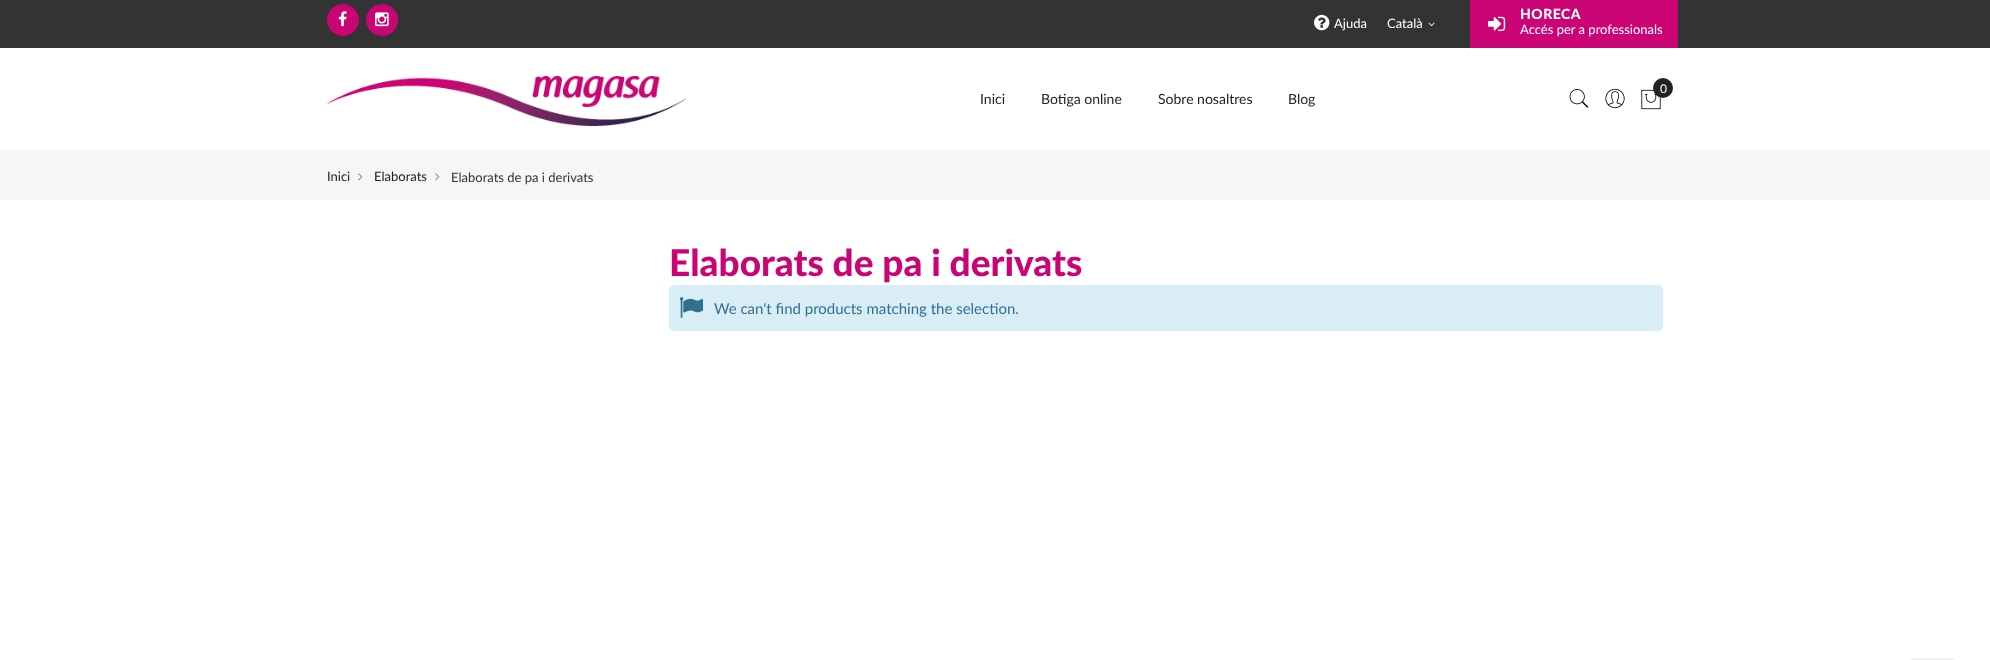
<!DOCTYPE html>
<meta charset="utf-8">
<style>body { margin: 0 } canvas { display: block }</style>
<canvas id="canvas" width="1990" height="660"></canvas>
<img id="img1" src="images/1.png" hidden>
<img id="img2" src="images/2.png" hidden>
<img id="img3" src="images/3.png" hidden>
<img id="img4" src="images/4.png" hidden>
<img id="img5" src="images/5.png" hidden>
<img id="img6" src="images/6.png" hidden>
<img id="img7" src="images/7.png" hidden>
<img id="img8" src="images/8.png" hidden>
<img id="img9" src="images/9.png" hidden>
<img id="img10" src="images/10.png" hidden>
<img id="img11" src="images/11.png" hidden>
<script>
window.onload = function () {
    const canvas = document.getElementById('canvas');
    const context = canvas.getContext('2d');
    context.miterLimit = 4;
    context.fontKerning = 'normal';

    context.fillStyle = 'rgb(255, 255, 255)';
    context.fillRect(0, 0, 1990, 660);
    context.fillStyle = 'rgb(51, 51, 51)';
    context.fillRect(0, 0, 1990, 48);
    context.fillStyle = 'rgb(202, 4, 116)';
    context.beginPath();
    context.arc(343, 20, 16, 0, 2 * Math.PI);
    context.fill();
    context.drawImage(document.getElementById('img1'), 338, 11, 9, 16);
    context.beginPath();
    context.arc(382, 20, 16, 0, 2 * Math.PI);
    context.fill();
    context.drawImage(document.getElementById('img2'), 375, 12, 14, 15);
    context.drawImage(document.getElementById('img3'), 1314, 14, 16, 17);
    context.drawImage(document.getElementById('img4'), 1428, 22, 7, 5);
    context.fillRect(1470, 0, 208, 48);
    context.drawImage(document.getElementById('img5'), 1488, 16, 18, 15);
    context.drawImage(document.getElementById('img6'), 327, 76, 359, 50);
    context.drawImage(document.getElementById('img7'), 1569, 89, 20, 19);
    context.drawImage(document.getElementById('img8'), 1605, 88, 20, 21);
    context.drawImage(document.getElementById('img9'), 1641, 89, 20, 21);
    context.fillStyle = 'rgb(34, 34, 34)';
    context.beginPath();
    context.arc(1663, 88, 10, 0, 2 * Math.PI);
    context.fill();
    context.fillStyle = 'rgb(246, 246, 248)';
    context.fillRect(0, 150, 1990, 50);
    context.drawImage(document.getElementById('img10'), 358, 173, 5, 8);
    context.drawImage(document.getElementById('img10'), 435, 173, 5, 8);
    context.fillStyle = 'rgb(217, 237, 247)';
    context.beginPath();
    context.roundRect(669, 285, 994, 46, 5);
    context.fill();
    context.drawImage(document.getElementById('img11'), 679, 297, 24, 21);
    context.fillStyle = 'rgba(0, 0, 0, 0.2)';
    context.filter = 'blur(1.5px)';
    context.beginPath();
    context.roundRect(1910, 660, 45, 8, 3);
    context.fill();
    context.filter = 'none';
    context.font = '13px Lato';
    context.fillStyle = 'rgb(255, 255, 255)';
    context.fillText('Ajuda', 1334, 28);
    context.fillText('Català', 1387, 28);
    context.letterSpacing = '0.5px';
    context.font = '900 14px Lato';
    context.fillText('HORECA', 1520, 19);
    context.letterSpacing = '0px';
    context.font = '13px Lato';
    context.fillText('Accés per a professionals', 1520, 34);
    context.font = '12px Lato';
    context.fillText('0', 1660, 93);
    context.font = '14px Lato';
    context.fillStyle = 'rgb(34, 34, 34)';
    context.fillText('Inici', 980, 104);
    context.fillText('Botiga online', 1041, 104);
    context.fillText('Sobre nosaltres', 1158, 104);
    context.fillText('Blog', 1288, 104);
    context.font = '13px Lato';
    context.fillText('Inici', 327, 181);
    context.fillText('Elaborats', 374, 181);
    context.fillStyle = 'rgb(51, 51, 51)';
    context.fillText('Elaborats de pa i derivats', 451, 182);
    context.font = '900 37px Lato';
    context.fillStyle = 'rgb(202, 4, 116)';
    context.fillText('Elaborats de pa i derivats', 669, 276);
    context.font = '15px Lato';
    context.fillStyle = 'rgb(49, 112, 143)';
    context.fillText('We can\'t find products matching the selection.', 714, 314);
};
</script>
